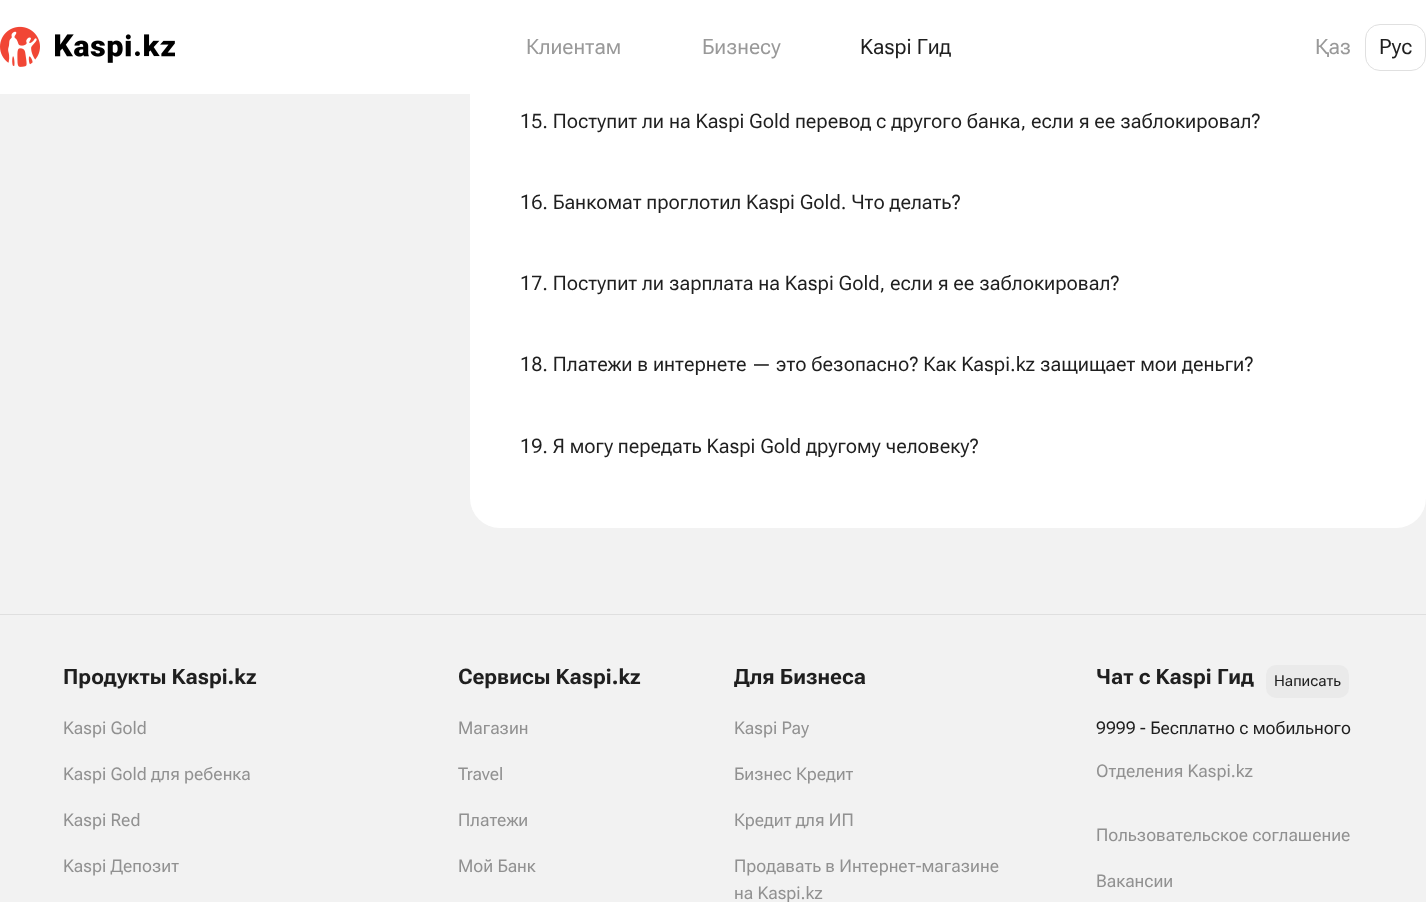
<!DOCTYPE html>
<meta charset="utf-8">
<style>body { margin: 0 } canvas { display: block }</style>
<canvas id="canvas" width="1426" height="902"></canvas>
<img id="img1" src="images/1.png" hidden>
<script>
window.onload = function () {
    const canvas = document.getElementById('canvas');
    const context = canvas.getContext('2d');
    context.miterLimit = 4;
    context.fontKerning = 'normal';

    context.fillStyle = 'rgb(242, 242, 242)';
    context.fillRect(0, 0, 1426, 902);
    context.fillStyle = 'rgb(255, 255, 255)';
    context.fillRect(0, 0, 470, 94);
    context.drawImage(document.getElementById('img1'), 0, 26, 175, 41);
    context.beginPath();
    context.roundRect(470, -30, 956, 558, 30);
    context.fill();
    context.beginPath();
    context.roundRect(1365.5, 24.5, 60, 46, 14.5);
    context.strokeStyle = 'rgb(224, 224, 224)';
    context.stroke();
    context.fillStyle = 'rgb(223, 223, 223)';
    context.fillRect(0, 614, 1426, 1);
    context.fillStyle = 'rgb(234, 234, 234)';
    context.beginPath();
    context.roundRect(1266, 665, 83, 33, 10);
    context.fill();
    context.font = 'italic 21.25px "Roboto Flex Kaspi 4"';
    context.fillStyle = 'rgb(153, 153, 153)';
    context.fillText('Клиентам', 526, 54);
    context.fillText('Бизнесу', 702, 54);
    context.fillStyle = 'rgb(31, 31, 31)';
    context.fillText('Kaspi Гид', 860, 54);
    context.font = '21.25px Roboto Flex';
    context.fillStyle = 'rgb(153, 153, 153)';
    context.fillText('Қаз', 1315, 54);
    context.fillStyle = 'rgb(31, 31, 31)';
    context.fillText('Рус', 1379, 54);
    context.font = 'italic 20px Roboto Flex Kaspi';
    context.fillText('15. Поступит ли на Kaspi Gold перевод с другого банка, если я ее заблокировал?', 520, 128);
    context.fillText('16. Банкомат проглотил Kaspi Gold. Что делать?', 520, 209);
    context.fillText('17. Поступит ли зарплата на Kaspi Gold, если я ее заблокировал?', 520, 290);
    context.fillText('18. Платежи в интернете — это безопасно? Как Kaspi.kz защищает мои деньги?', 520, 371);
    context.fillText('19. Я могу передать Kaspi Gold другому человеку?', 520, 453);
    context.font = 'italic bold 21.25px Roboto Flex Kaspi';
    context.fillText('Продукты Kaspi.kz', 63, 684);
    context.font = 'italic 17.5px "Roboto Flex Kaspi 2"';
    context.fillStyle = 'rgb(145, 145, 145)';
    context.fillText('Kaspi Gold', 63, 734);
    context.fillText('Kaspi Gold для ребенка', 63, 780);
    context.fillText('Kaspi Red', 63, 826);
    context.fillText('Kaspi Депозит', 63, 872);
    context.font = 'italic bold 21.25px Roboto Flex Kaspi';
    context.fillStyle = 'rgb(31, 31, 31)';
    context.fillText('Сервисы Kaspi.kz', 458, 684);
    context.font = 'italic 17.5px "Roboto Flex Kaspi 2"';
    context.fillStyle = 'rgb(145, 145, 145)';
    context.fillText('Магазин', 458, 734);
    context.fillText('Travel', 458, 780);
    context.fillText('Платежи', 458, 826);
    context.fillText('Мой Банк', 458, 872);
    context.font = 'italic bold 21.25px Roboto Flex Kaspi';
    context.fillStyle = 'rgb(31, 31, 31)';
    context.fillText('Для Бизнеса', 734, 684);
    context.font = 'italic 17.5px "Roboto Flex Kaspi 2"';
    context.fillStyle = 'rgb(145, 145, 145)';
    context.fillText('Kaspi Pay', 734, 734);
    context.fillText('Бизнес Кредит', 734, 780);
    context.fillText('Кредит для ИП', 734, 826);
    context.fillText('Продавать в Интернет-магазине', 734, 872);
    context.fillText('на Kaspi.kz', 734, 899);
    context.font = 'italic bold 21.25px Roboto Flex Kaspi';
    context.fillStyle = 'rgb(31, 31, 31)';
    context.fillText('Чат с Kaspi Гид', 1096, 684);
    context.font = 'italic 15px "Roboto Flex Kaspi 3"';
    context.fillText('Написать', 1274, 686);
    context.font = 'italic 17.5px "Roboto Flex Kaspi 2"';
    context.fillText('9999 - Бесплатно с мобильного', 1096, 734);
    context.fillStyle = 'rgb(145, 145, 145)';
    context.fillText('Отделения Kaspi.kz', 1096, 777);
    context.fillText('Пользовательское соглашение', 1096, 841);
    context.fillText('Вакансии', 1096, 887);
};
</script>
